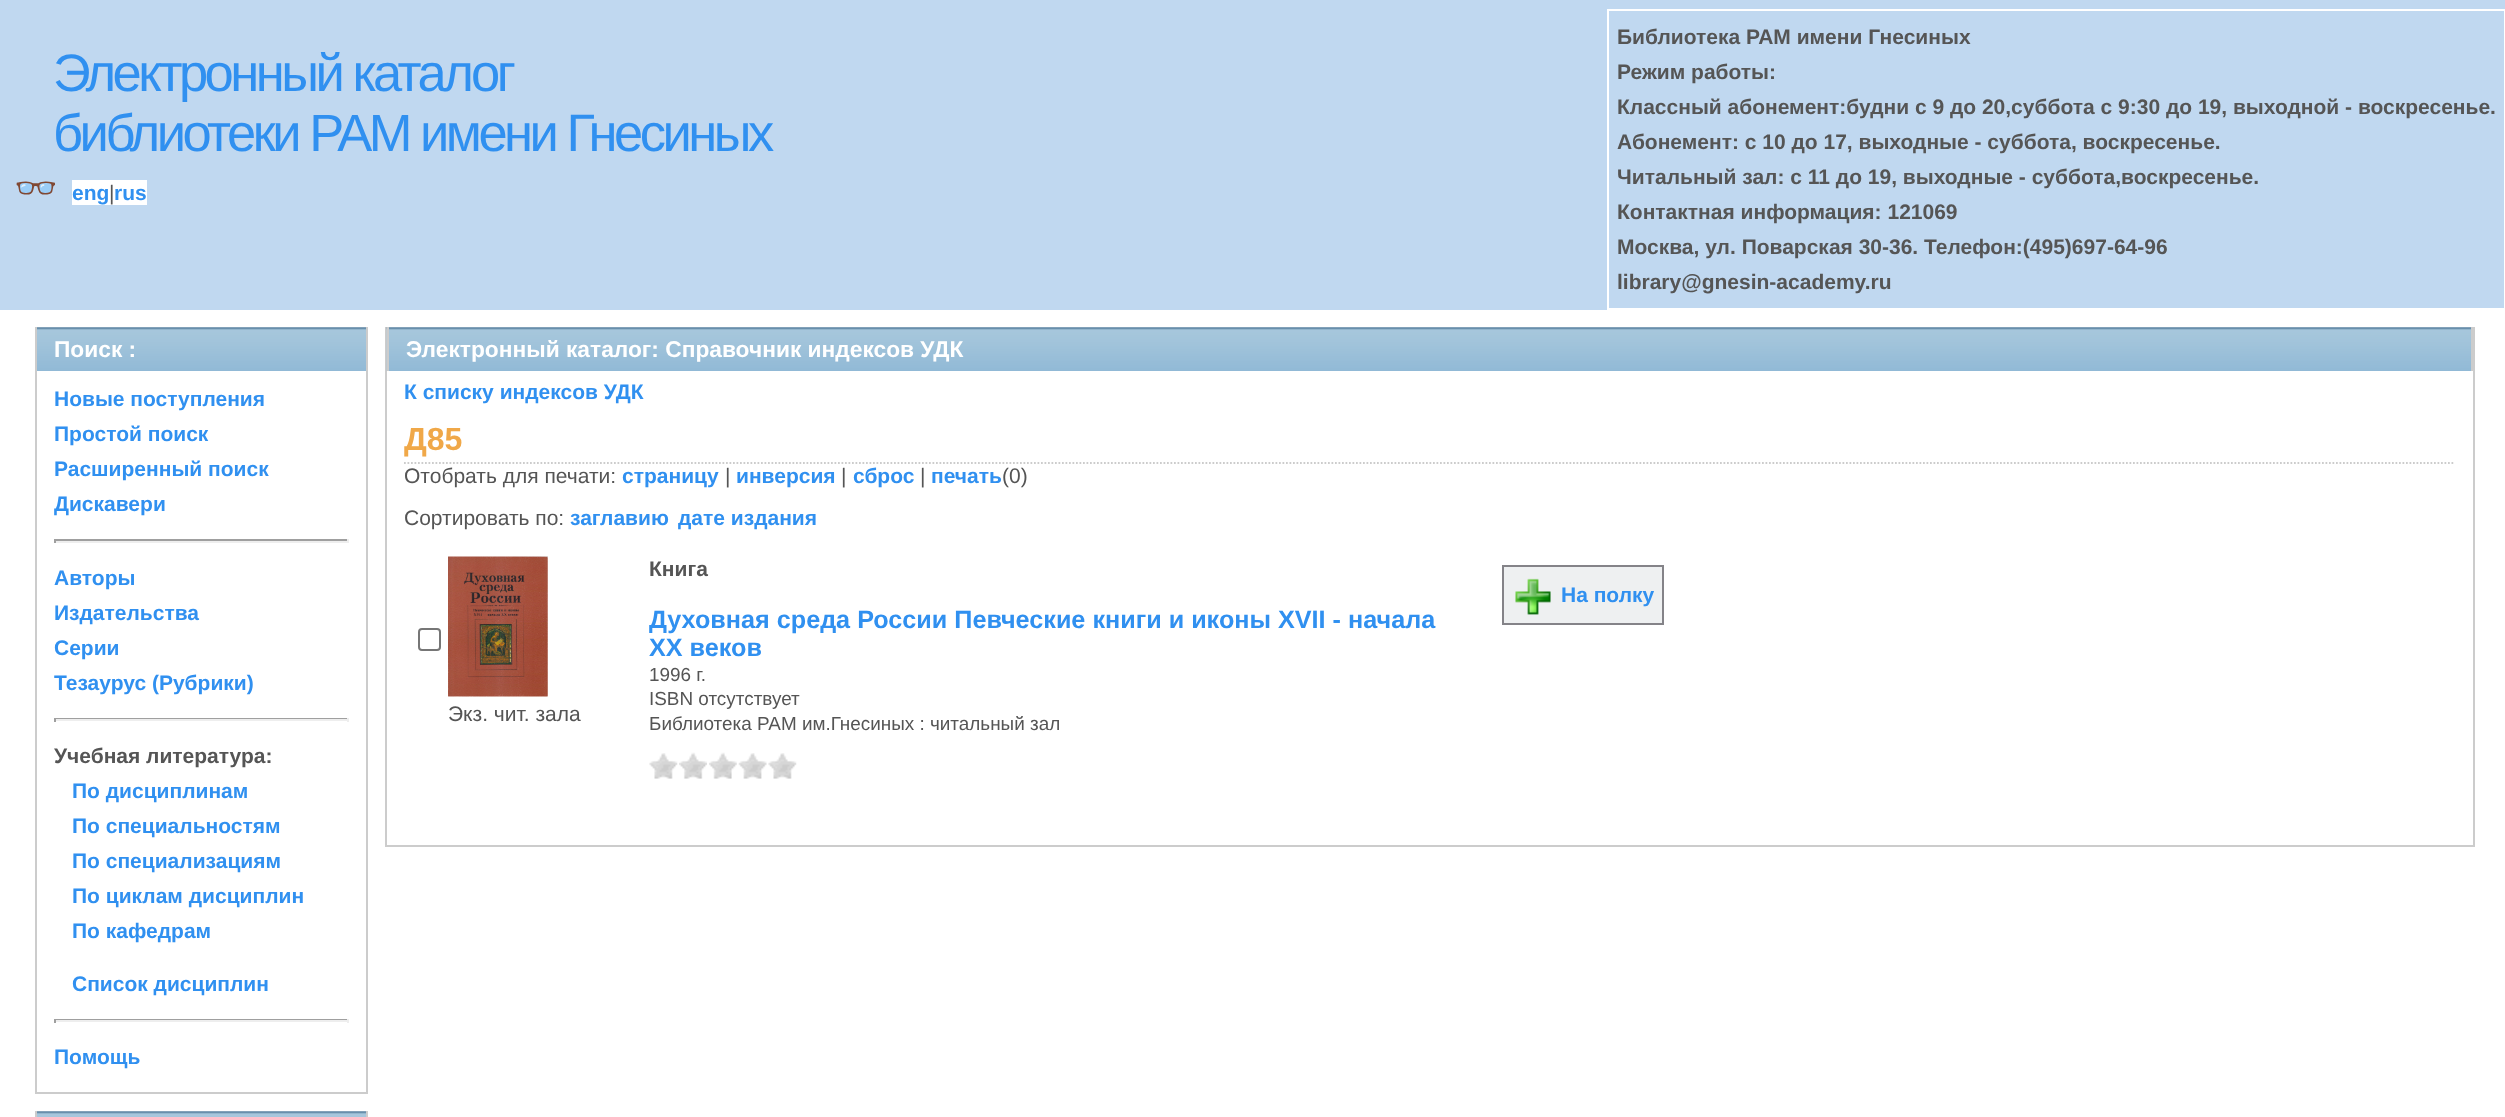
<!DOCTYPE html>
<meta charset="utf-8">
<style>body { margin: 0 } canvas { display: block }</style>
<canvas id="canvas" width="2505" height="1117"></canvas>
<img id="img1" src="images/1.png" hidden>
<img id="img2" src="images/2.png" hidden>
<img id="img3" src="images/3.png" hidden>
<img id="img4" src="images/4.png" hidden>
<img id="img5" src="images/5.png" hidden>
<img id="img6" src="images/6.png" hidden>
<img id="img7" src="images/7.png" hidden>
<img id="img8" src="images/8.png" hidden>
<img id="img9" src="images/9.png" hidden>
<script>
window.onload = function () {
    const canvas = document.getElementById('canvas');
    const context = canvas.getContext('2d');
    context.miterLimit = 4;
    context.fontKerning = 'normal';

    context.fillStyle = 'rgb(255, 255, 255)';
    context.fillRect(0, 0, 2505, 1117);
    context.fillStyle = 'rgb(192, 216, 240)';
    context.fillRect(0, 0, 2505, 310);
    context.fillStyle = 'rgb(255, 255, 255)';
    context.fillRect(72, 180, 75, 25);
    context.strokeStyle = 'rgb(255, 255, 255)';
    context.lineWidth = 2;
    context.strokeRect(1608, 10, 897, 299);
    context.drawImage(document.getElementById('img1'), 37, 327, 329, 44);
    context.fillStyle = 'rgb(204, 204, 204)';
    context.fillRect(366, 327, 2, 767);
    context.fillRect(35, 327, 2, 44);
    context.fillRect(35, 1092, 333, 2);
    context.fillRect(35, 371, 2, 723);
    context.fillStyle = 'rgb(159, 159, 159)';
    context.fillRect(54, 539, 294, 2);
    context.fillStyle = 'rgb(238, 238, 238)';
    context.fillRect(347, 539, 2, 4);
    context.fillRect(54, 541, 294, 2);
    context.fillStyle = 'rgb(159, 159, 159)';
    context.fillRect(54, 539, 2, 4);
    context.fillRect(54, 718, 294, 1);
    context.fillStyle = 'rgb(238, 238, 238)';
    context.fillRect(347, 718, 2, 4);
    context.fillRect(54, 719, 294, 2);
    context.fillStyle = 'rgb(159, 159, 159)';
    context.fillRect(54, 718, 2, 4);
    context.fillRect(54, 1019, 294, 1);
    context.fillStyle = 'rgb(238, 238, 238)';
    context.fillRect(347, 1019, 2, 4);
    context.fillRect(54, 1020, 294, 2);
    context.fillStyle = 'rgb(159, 159, 159)';
    context.fillRect(54, 1019, 2, 4);
    context.drawImage(document.getElementById('img2'), 37, 1111, 329, 6);
    context.fillStyle = 'rgb(204, 204, 204)';
    context.fillRect(366, 1111, 2, 6);
    context.fillRect(35, 1111, 2, 6);
    context.fillRect(2473, 327, 2, 520);
    context.fillRect(385, 845, 2090, 2);
    context.fillRect(385, 327, 2, 520);
    context.drawImage(document.getElementById('img3'), 386, 327, 2085, 44);
    context.fillRect(2471, 327, 2, 44);
    context.fillRect(387, 327, 2, 44);
    context.beginPath();
    context.moveTo(404, 463);
    context.lineTo(2455, 463);
    context.strokeStyle = 'rgb(204, 204, 204)';
    context.lineWidth = 1.8;
    context.setLineDash([1.75, 1.75]);
    context.stroke();
    context.drawImage(document.getElementById('img4'), 649, 753, 29, 26);
    context.drawImage(document.getElementById('img5'), 679, 752, 28, 27);
    context.drawImage(document.getElementById('img6'), 709, 752, 28, 27);
    context.drawImage(document.getElementById('img7'), 738, 753, 29, 26);
    context.drawImage(document.getElementById('img4'), 768, 753, 29, 26);
    context.fillStyle = 'rgb(238, 240, 241)';
    context.beginPath();
    context.rect(1503, 566, 160, 58);
    context.fill();
    context.strokeStyle = 'rgb(132, 131, 136)';
    context.lineWidth = 2;
    context.setLineDash([]);
    context.stroke();
    context.drawImage(document.getElementById('img8'), 1515, 578, 36, 37);
    context.beginPath();
    context.roundRect(419, 629, 21, 21, 3);
    context.strokeStyle = 'rgb(118, 118, 118)';
    context.stroke();
    context.drawImage(document.getElementById('img9'), 448, 556, 100, 141);
    context.letterSpacing = '-3.5px';
    context.font = '52.5px Liberation Sans';
    context.fillStyle = 'rgb(48, 144, 240)';
    context.fillText('Электронный каталог', 53, 91);
    context.fillText('библиотеки РАМ имени Гнесиных', 53, 151);
    context.letterSpacing = '0px';
    context.font = 'bold 35px Noto Color Emoji';
    context.fillText('👓', 14, 200);
    context.font = 'bold 21px Liberation Sans';
    context.fillText('eng', 72, 200);
    context.font = '21px Liberation Sans';
    context.fillStyle = 'rgb(85, 85, 85)';
    context.fillText('|', 109, 200);
    context.font = 'bold 21px Liberation Sans';
    context.fillStyle = 'rgb(48, 144, 240)';
    context.fillText('rus', 114, 200);
    context.fillStyle = 'rgb(85, 85, 85)';
    context.fillText('Библиотека РАМ имени Гнесиных', 1617, 44);
    context.fillText('Режим работы:', 1617, 79);
    context.fillText('Классный абонемент:будни с 9 до 20,суббота с 9:30 до 19, выходной - воскресенье.', 1617, 114);
    context.fillText('Абонемент: с 10 до 17, выходные - суббота, воскресенье.', 1617, 149);
    context.fillText('Читальный зал: с 11 до 19, выходные - суббота,воскресенье.', 1617, 184);
    context.fillText('Контактная информация: 121069', 1617, 219);
    context.fillText('Москва, ул. Поварская 30-36. Телефон:(495)697-64-96', 1617, 254);
    context.fillText('library@gnesin-academy.ru', 1617, 289);
    context.font = 'bold 22.75px Liberation Sans';
    context.fillStyle = 'rgb(255, 255, 255)';
    context.fillText('Поиск :', 54, 357);
    context.font = 'bold 21px Liberation Sans';
    context.fillStyle = 'rgb(48, 144, 240)';
    context.fillText('Новые поступления', 54, 406);
    context.fillText('Простой поиск', 54, 441);
    context.fillText('Расширенный поиск', 54, 476);
    context.fillText('Дискавери', 54, 511);
    context.fillText('Авторы', 54, 585);
    context.fillText('Издательства', 54, 620);
    context.fillText('Серии', 54, 655);
    context.fillText('Тезаурус (Рубрики)', 54, 690);
    context.fillStyle = 'rgb(85, 85, 85)';
    context.fillText('Учебная литература:', 54, 763);
    context.fillStyle = 'rgb(48, 144, 240)';
    context.fillText('По дисциплинам', 72, 798);
    context.fillText('По специальностям', 72, 833);
    context.fillText('По специализациям', 72, 868);
    context.fillText('По циклам дисциплин', 72, 903);
    context.fillText('По кафедрам', 72, 938);
    context.fillText('Список дисциплин', 72, 991);
    context.fillText('Помощь', 54, 1064);
    context.font = 'bold 22.75px Liberation Sans';
    context.fillStyle = 'rgb(255, 255, 255)';
    context.fillText('Электронный каталог: Справочник индексов УДК', 406, 357);
    context.font = 'bold 21px Liberation Sans';
    context.fillStyle = 'rgb(48, 144, 240)';
    context.fillText('К списку индексов УДК', 404, 399);
    context.font = 'bold 32px Liberation Sans';
    context.fillStyle = 'rgb(240, 168, 72)';
    context.fillText('Д85', 404, 450);
    context.font = '21px Liberation Sans';
    context.fillStyle = 'rgb(85, 85, 85)';
    context.fillText('Отобрать для печати:', 404, 483);
    context.font = 'bold 21px Liberation Sans';
    context.fillStyle = 'rgb(48, 144, 240)';
    context.fillText('страницу', 622, 483);
    context.font = '21px Liberation Sans';
    context.fillStyle = 'rgb(85, 85, 85)';
    context.fillText('|', 725, 483);
    context.font = 'bold 21px Liberation Sans';
    context.fillStyle = 'rgb(48, 144, 240)';
    context.fillText('инверсия', 736, 483);
    context.font = '21px Liberation Sans';
    context.fillStyle = 'rgb(85, 85, 85)';
    context.fillText('|', 841, 483);
    context.font = 'bold 21px Liberation Sans';
    context.fillStyle = 'rgb(48, 144, 240)';
    context.fillText('сброс', 853, 483);
    context.font = '21px Liberation Sans';
    context.fillStyle = 'rgb(85, 85, 85)';
    context.fillText('|', 920, 483);
    context.font = 'bold 21px Liberation Sans';
    context.fillStyle = 'rgb(48, 144, 240)';
    context.fillText('печать', 931, 483);
    context.font = '21px Liberation Sans';
    context.fillStyle = 'rgb(85, 85, 85)';
    context.fillText('(0)', 1002, 483);
    context.fillText('Сортировать по:', 404, 525);
    context.font = 'bold 21px Liberation Sans';
    context.fillStyle = 'rgb(48, 144, 240)';
    context.fillText('заглавию', 570, 525);
    context.fillText('дате издания', 678, 525);
    context.fillStyle = 'rgb(85, 85, 85)';
    context.fillText('Книга', 649, 576);
    context.font = 'bold 25.2px Liberation Sans';
    context.fillStyle = 'rgb(48, 144, 240)';
    context.fillText('Духовная среда России Певческие книги и иконы XVII - начала', 649, 628);
    context.fillText('XX веков', 649, 656);
    context.font = '18.9px Liberation Sans';
    context.fillStyle = 'rgb(85, 85, 85)';
    context.fillText('1996 г.', 649, 681);
    context.fillText('ISBN отсутствует', 649, 705);
    context.fillText('Библиотека РАМ им.Гнесиных : читальный зал', 649, 730);
    context.font = 'bold 21px Liberation Sans';
    context.fillStyle = 'rgb(48, 144, 240)';
    context.fillText('На полку', 1561, 602);
    context.font = '21px Liberation Sans';
    context.fillStyle = 'rgb(85, 85, 85)';
    context.fillText('Экз. чит. зала', 448, 721);
};
</script>
